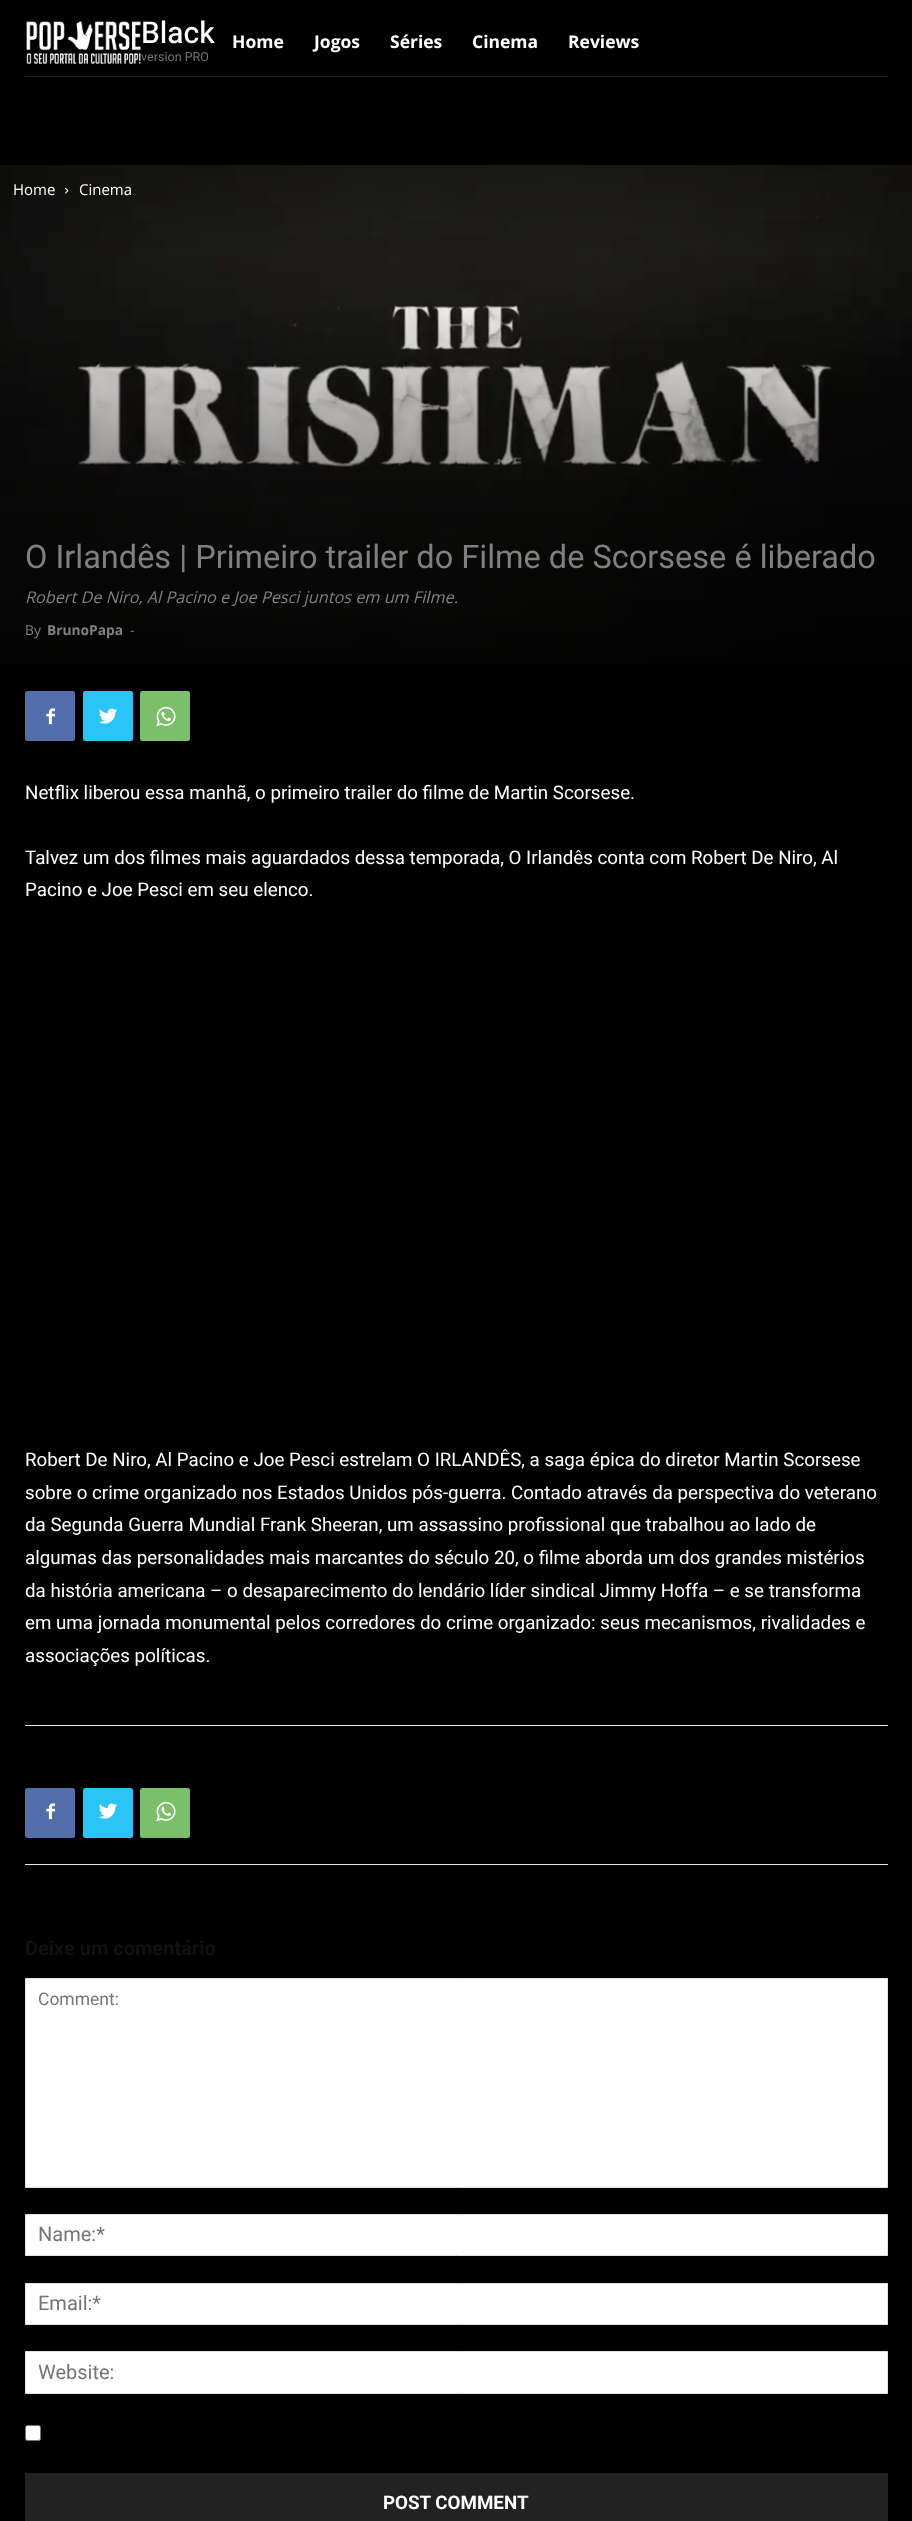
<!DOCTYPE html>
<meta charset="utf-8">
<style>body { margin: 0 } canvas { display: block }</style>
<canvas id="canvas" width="912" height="2521"></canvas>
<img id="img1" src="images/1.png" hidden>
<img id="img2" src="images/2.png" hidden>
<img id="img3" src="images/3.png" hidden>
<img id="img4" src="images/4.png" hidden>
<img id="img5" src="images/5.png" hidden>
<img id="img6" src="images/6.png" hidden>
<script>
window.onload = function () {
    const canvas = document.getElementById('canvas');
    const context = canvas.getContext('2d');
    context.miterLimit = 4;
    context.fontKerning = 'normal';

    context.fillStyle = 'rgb(0, 0, 0)';
    context.fillRect(0, 0, 912, 2521);
    context.drawImage(document.getElementById('img1'), 26, 21, 115, 43);
    context.fillStyle = 'rgb(31, 30, 30)';
    context.fillRect(25, 76, 863, 1);
    context.drawImage(document.getElementById('img2'), 0, 165, 912, 500);
    context.drawImage(document.getElementById('img3'), 65, 187, 4, 7);
    context.fillStyle = 'rgb(81, 110, 171)';
    context.beginPath();
    context.roundRect(25, 691, 50, 50, 2.5);
    context.fill();
    context.drawImage(document.getElementById('img4'), 46, 708, 9, 17);
    context.fillStyle = 'rgb(41, 197, 246)';
    context.beginPath();
    context.roundRect(83, 691, 50, 50, 2.5);
    context.fill();
    context.drawImage(document.getElementById('img5'), 99, 708, 18, 16);
    context.fillStyle = 'rgb(123, 191, 106)';
    context.beginPath();
    context.roundRect(140, 691, 50, 50, 2.5);
    context.fill();
    context.drawImage(document.getElementById('img6'), 156, 706, 20, 21);
    context.fillStyle = 'rgb(237, 237, 237)';
    context.fillRect(25, 1725, 863, 1);
    context.fillRect(25, 1864, 863, 1);
    context.fillStyle = 'rgb(81, 110, 171)';
    context.beginPath();
    context.roundRect(25, 1788, 50, 50, 2.5);
    context.fill();
    context.drawImage(document.getElementById('img4'), 46, 1803, 9, 17);
    context.fillStyle = 'rgb(41, 197, 246)';
    context.beginPath();
    context.roundRect(83, 1788, 50, 50, 2.5);
    context.fill();
    context.drawImage(document.getElementById('img5'), 99, 1803, 18, 16);
    context.fillStyle = 'rgb(123, 191, 106)';
    context.beginPath();
    context.roundRect(140, 1788, 50, 50, 2.5);
    context.fill();
    context.drawImage(document.getElementById('img6'), 156, 1801, 20, 21);
    context.fillStyle = 'rgb(255, 255, 255)';
    context.beginPath();
    context.rect(25.5, 1978.5, 862, 209);
    context.fill();
    context.strokeStyle = 'rgb(225, 225, 225)';
    context.stroke();
    context.beginPath();
    context.rect(25.5, 2214.5, 862, 41);
    context.fill();
    context.stroke();
    context.beginPath();
    context.rect(25.5, 2283.5, 862, 41);
    context.fill();
    context.stroke();
    context.beginPath();
    context.rect(25.5, 2351.5, 862, 42);
    context.fill();
    context.stroke();
    context.beginPath();
    context.roundRect(25.5, 2425.5, 15, 15, 2);
    context.fill();
    context.strokeStyle = 'rgb(118, 118, 118)';
    context.stroke();
    context.fillStyle = 'rgb(34, 34, 34)';
    context.fillRect(25, 2473, 863, 48);
    context.font = '500 30px Heebo';
    context.fillStyle = 'rgb(255, 255, 255)';
    context.fillText('Black', 141, 43);
    context.font = '12.5px Heebo';
    context.fillStyle = 'rgb(117, 117, 117)';
    context.fillText('version PRO', 141, 61);
    context.font = 'bold 17.5px Open Sans';
    context.fillStyle = 'rgb(255, 255, 255)';
    context.fillText('Home', 232, 48);
    context.fillText('Jogos', 314, 48);
    context.fillText('Séries', 390, 48);
    context.fillText('Cinema', 472, 48);
    context.fillText('Reviews', 568, 48);
    context.font = '15px Open Sans';
    context.fillText('Home', 13, 195);
    context.fillText('Cinema', 79, 195);
    context.font = '32.5px Roboto';
    context.fillStyle = 'rgb(128, 128, 128)';
    context.fillText('O Irlandês | Primeiro trailer do Filme de Scorsese é liberado', 25, 568);
    context.font = 'italic 16.25px Open Sans';
    context.fillText('Robert De Niro, Al Pacino e Joe Pesci juntos em um Filme.', 25, 603);
    context.font = '13.75px Open Sans';
    context.fillText('By', 25, 635);
    context.font = 'bold 13.75px Open Sans';
    context.fillText('BrunoPapa', 47, 635);
    context.font = '13.75px Open Sans';
    context.fillText('-', 130, 635);
    context.font = '18.75px Roboto';
    context.fillStyle = 'rgb(255, 255, 255)';
    context.fillText('Netflix liberou essa manhã, o primeiro trailer do filme de Martin Scorsese.', 25, 799);
    context.fillText('Talvez um dos filmes mais aguardados dessa temporada, O Irlandês conta com Robert De Niro, Al', 25, 864);
    context.fillText('Pacino e Joe Pesci em seu elenco.', 25, 896);
    context.fillText('Robert De Niro, Al Pacino e Joe Pesci estrelam O IRLANDÊS, a saga épica do diretor Martin Scorsese', 25, 1466);
    context.fillText('sobre o crime organizado nos Estados Unidos pós-guerra. Contado através da perspectiva do veterano', 25, 1499);
    context.fillText('da Segunda Guerra Mundial Frank Sheeran, um assassino profissional que trabalhou ao lado de', 25, 1531);
    context.fillText('algumas das personalidades mais marcantes do século 20, o filme aborda um dos grandes mistérios', 25, 1564);
    context.fillText('da história americana – o desaparecimento do lendário líder sindical Jimmy Hoffa – e se transforma', 25, 1597);
    context.fillText('em uma jornada monumental pelos corredores do crime organizado: seus mecanismos, rivalidades e', 25, 1629);
    context.fillText('associações políticas.', 25, 1662);
    context.font = 'bold 20px Roboto';
    context.fillStyle = 'rgb(17, 17, 17)';
    context.fillText('Deixe um comentário', 25, 1955);
    context.font = '17.5px Roboto';
    context.fillStyle = 'rgb(117, 117, 117)';
    context.fillText('Comment:', 38, 2005);
    context.font = '20px Roboto';
    context.fillText('Name:*', 38, 2241);
    context.fillText('Email:*', 38, 2310);
    context.fillText('Website:', 38, 2379);
    context.font = 'bold 18.75px Roboto';
    context.fillStyle = 'rgb(255, 255, 255)';
    context.fillText('POST COMMENT', 383, 2509);
};
</script>
